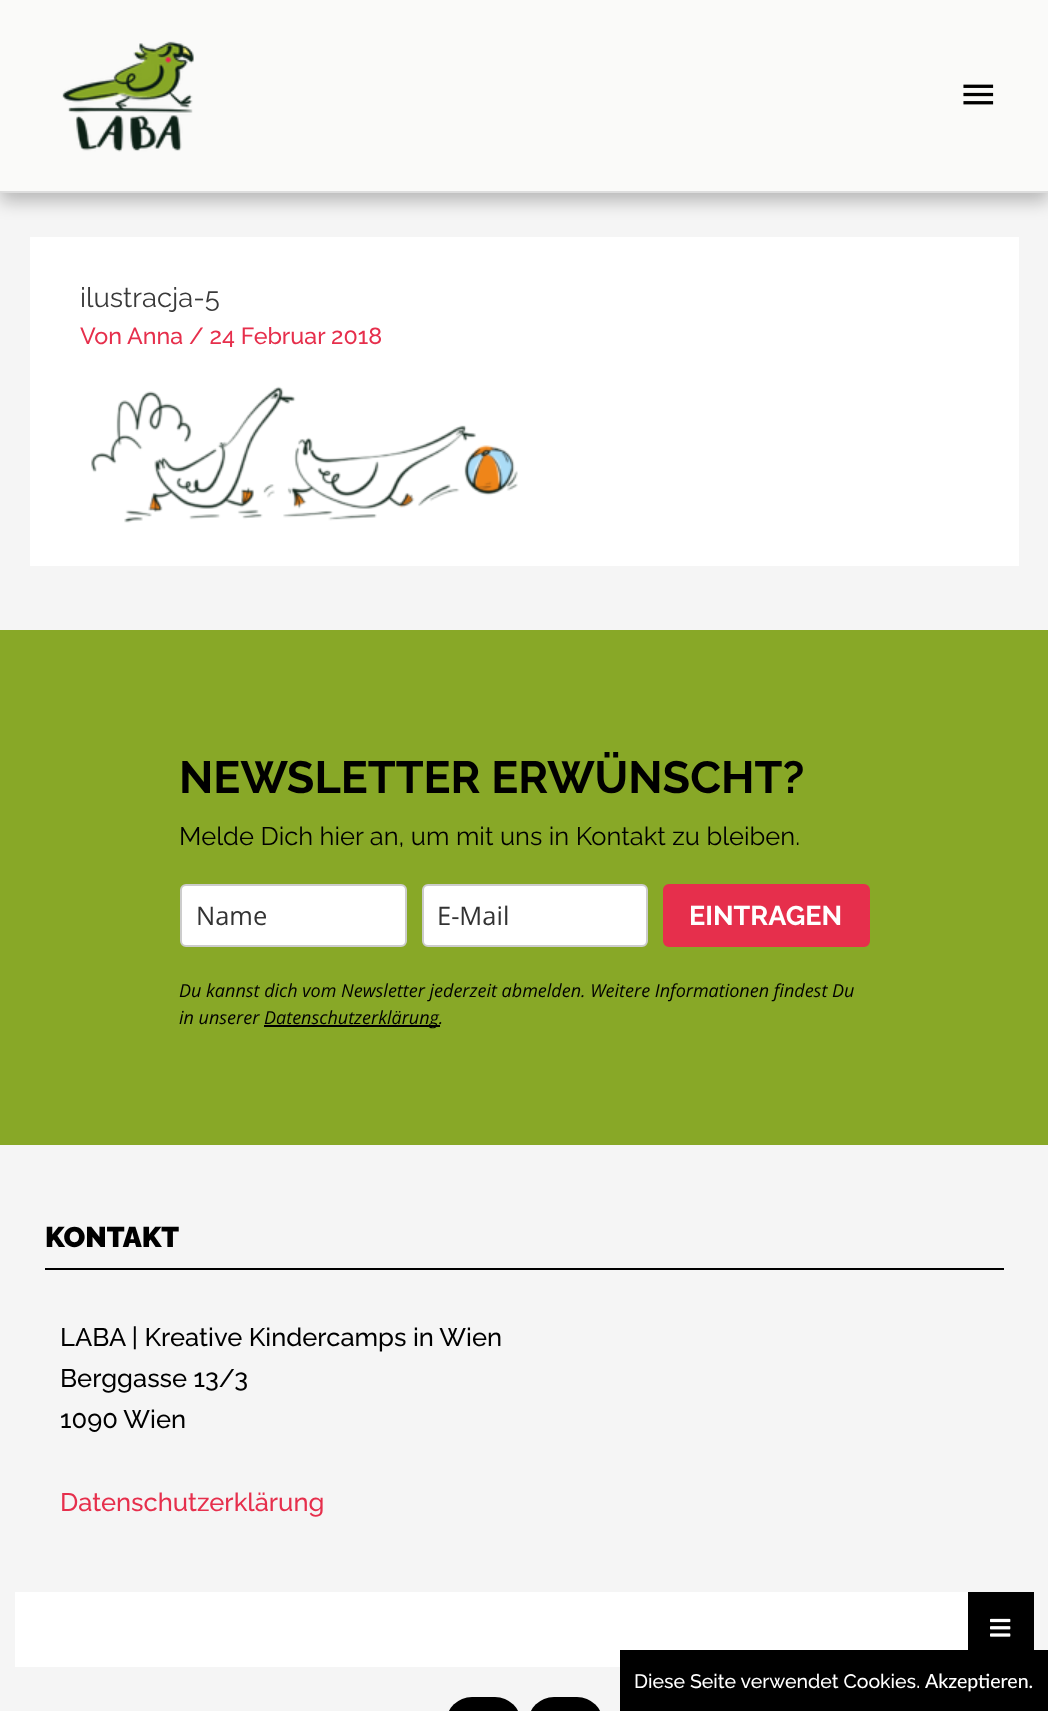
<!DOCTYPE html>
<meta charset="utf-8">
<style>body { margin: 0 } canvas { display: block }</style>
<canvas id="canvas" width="1048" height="1711"></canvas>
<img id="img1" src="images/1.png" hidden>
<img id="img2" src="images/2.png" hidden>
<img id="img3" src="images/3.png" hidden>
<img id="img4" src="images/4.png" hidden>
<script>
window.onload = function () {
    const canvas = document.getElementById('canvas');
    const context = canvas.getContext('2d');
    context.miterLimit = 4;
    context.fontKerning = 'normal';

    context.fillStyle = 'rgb(245, 245, 245)';
    context.fillRect(0, 0, 1048, 1711);
    context.fillStyle = 'rgba(0, 0, 0, 0.26)';
    context.filter = 'blur(9px)';
    context.beginPath();
    context.rect(0, 9, 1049, 192);
    context.fill();
    context.filter = 'none';
    context.fillStyle = 'rgb(250, 250, 249)';
    context.fillRect(0, 0, 1048, 191);
    context.fillStyle = 'rgb(221, 221, 221)';
    context.fillRect(0, 191, 1048, 2);
    context.drawImage(document.getElementById('img1'), 62, 41, 132, 111);
    context.drawImage(document.getElementById('img2'), 963, 84, 31, 21);
    context.fillStyle = 'rgb(255, 255, 255)';
    context.fillRect(30, 237, 989, 329);
    context.drawImage(document.getElementById('img3'), 91, 386, 427, 137);
    context.fillStyle = 'rgb(136, 168, 39)';
    context.fillRect(0, 630, 1048, 515);
    context.fillStyle = 'rgb(255, 255, 255)';
    context.beginPath();
    context.roundRect(181, 885, 225, 61, 5);
    context.fill();
    context.strokeStyle = 'rgb(204, 204, 204)';
    context.lineWidth = 2;
    context.stroke();
    context.beginPath();
    context.roundRect(423, 885, 224, 61, 5);
    context.fill();
    context.stroke();
    context.fillStyle = 'rgb(230, 47, 76)';
    context.beginPath();
    context.roundRect(664, 885, 205, 61, 5);
    context.fill();
    context.strokeStyle = 'rgb(230, 47, 76)';
    context.stroke();
    context.fillStyle = 'rgb(0, 0, 0)';
    context.fillRect(264, 1025, 176, 2);
    context.fillRect(45, 1268, 959, 2);
    context.fillStyle = 'rgb(255, 255, 255)';
    context.fillRect(15, 1592, 953, 75);
    context.fillStyle = 'rgb(0, 0, 0)';
    context.fillRect(968, 1592, 66, 58);
    context.drawImage(document.getElementById('img4'), 990, 1618, 21, 19);
    context.beginPath();
    context.roundRect(446, 1697, 75, 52, 37.5);
    context.fill();
    context.beginPath();
    context.roundRect(528, 1697, 75, 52, 37.5);
    context.fill();
    context.fillRect(620, 1650, 428, 61);
    context.font = '27.5px Raleway';
    context.fillStyle = 'rgb(58, 58, 58)';
    context.fillText('ilustracja-5', 80, 307);
    context.font = '500 23.25px Raleway';
    context.fillStyle = 'rgb(230, 47, 76)';
    context.fillText('Von', 80, 344);
    context.fillText('Anna / 24 Februar 2018', 127, 344);
    context.font = 'bold 45px Raleway';
    context.fillStyle = 'rgb(0, 0, 0)';
    context.fillText('NEWSLETTER ERWÜNSCHT?', 179, 793);
    context.font = '25.5px Raleway';
    context.fillText('Melde Dich hier an, um mit uns in Kontakt zu bleiben.', 179, 845);
    context.font = '25.5px Open Sans';
    context.fillStyle = 'rgb(51, 51, 51)';
    context.fillText('Name', 196, 925);
    context.fillText('E-Mail', 437, 925);
    context.font = 'bold 27px Raleway';
    context.fillStyle = 'rgb(255, 255, 255)';
    context.fillText('EINTRAGEN', 689, 925);
    context.font = 'italic 18px Open Sans';
    context.fillStyle = 'rgb(0, 0, 0)';
    context.fillText('Du kannst dich vom Newsletter jederzeit abmelden. Weitere Informationen findest Du', 179, 997);
    context.fillText('in unserer', 179, 1024);
    context.fillText('Datenschutzerklärung.', 264, 1024);
    context.font = '900 28.5px Raleway';
    context.fillText('KONTAKT', 45, 1247);
    context.font = '500 25.5px Raleway';
    context.fillText('LABA | Kreative Kindercamps in Wien', 60, 1346);
    context.fillText('Berggasse 13/3', 60, 1387);
    context.fillText('1090 Wien', 60, 1428);
    context.fillStyle = 'rgb(230, 47, 76)';
    context.fillText('Datenschutzerklärung', 60, 1511);
    context.font = '500 19.5px Raleway';
    context.fillStyle = 'rgb(255, 255, 255)';
    context.fillText('Diese Seite verwendet Cookies.', 634, 1688);
    context.font = '500 19.5px Lato';
    context.fillText('Akzeptieren.', 925, 1688);
};
</script>
